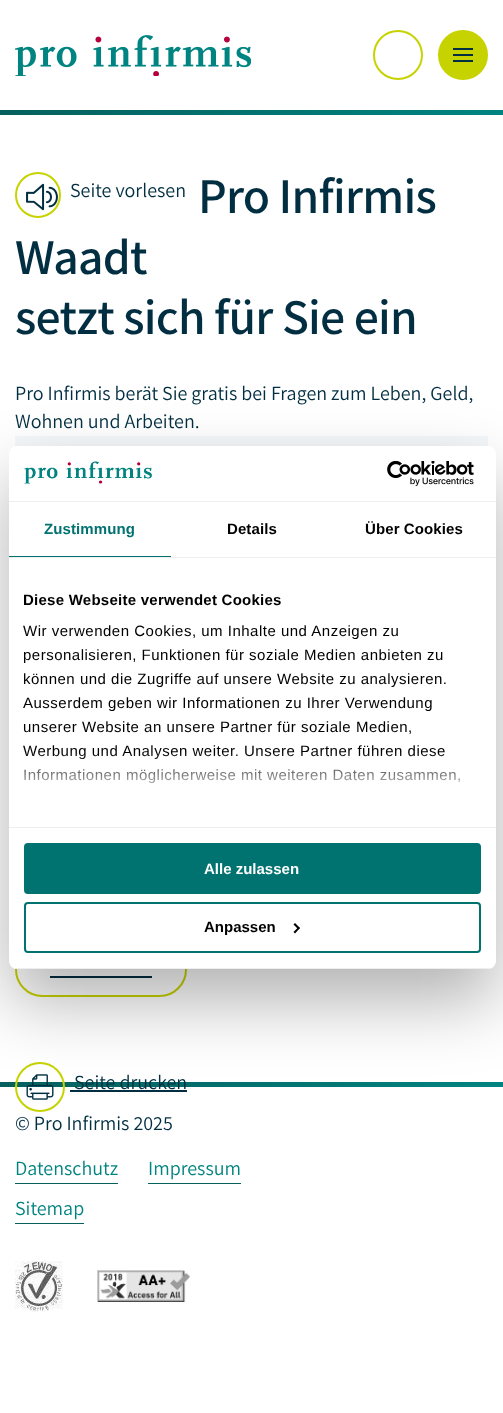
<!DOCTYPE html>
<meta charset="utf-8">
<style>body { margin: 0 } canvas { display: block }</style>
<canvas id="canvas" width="503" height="1413"></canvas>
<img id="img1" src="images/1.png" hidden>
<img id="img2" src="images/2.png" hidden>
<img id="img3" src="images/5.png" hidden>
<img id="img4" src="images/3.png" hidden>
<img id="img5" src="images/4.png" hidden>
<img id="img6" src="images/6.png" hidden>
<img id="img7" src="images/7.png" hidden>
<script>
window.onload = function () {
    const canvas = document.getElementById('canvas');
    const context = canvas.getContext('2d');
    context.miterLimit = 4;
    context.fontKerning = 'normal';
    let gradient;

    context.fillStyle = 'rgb(255, 255, 255)';
    context.fillRect(0, 0, 503, 1413);
    context.drawImage(document.getElementById('img1'), 15, 35, 236, 41);
    context.beginPath();
    context.arc(398, 55, 24, 0, 2 * Math.PI);
    context.strokeStyle = 'rgb(199, 211, 0)';
    context.lineWidth = 2;
    context.stroke();
    context.fillStyle = 'rgb(199, 211, 0)';
    context.beginPath();
    context.arc(463, 55, 24, 0, 2 * Math.PI);
    context.fill();
    context.stroke();
    context.fillStyle = 'rgb(1, 46, 65)';
    context.fillRect(453, 48, 20, 2);
    context.fillRect(453, 60, 20, 2);
    context.fillRect(453, 54, 20, 2);
    gradient = context.createLinearGradient(0, 113, 503, 112);
    gradient.addColorStop(0, 'rgb(6, 96, 94)');
    gradient.addColorStop(1, 'rgb(0, 132, 129)');
    context.fillStyle = gradient;
    context.fillRect(0, 110, 503, 5);
    context.beginPath();
    context.arc(38, 195, 22, 0, 2 * Math.PI);
    context.stroke();
    context.drawImage(document.getElementById('img2'), 26, 183, 32, 28);
    context.fillStyle = 'rgb(245, 248, 250)';
    context.fillRect(15, 436, 473, 11);
    context.beginPath();
    context.roundRect(16, 943, 170, 53, 26.5);
    context.stroke();
    context.fillStyle = 'rgb(1, 46, 65)';
    context.fillRect(50, 976, 102, 2);
    gradient = context.createLinearGradient(0, 1085, 503, 1085);
    gradient.addColorStop(0, 'rgb(6, 96, 94)');
    gradient.addColorStop(1, 'rgb(0, 132, 129)');
    context.fillStyle = gradient;
    context.fillRect(0, 1082, 503, 5);
    context.beginPath();
    context.arc(40, 1087, 24, 0, 2 * Math.PI);
    context.stroke();
    context.drawImage(document.getElementById('img3'), 26, 1074, 28, 26);
    context.fillStyle = 'rgb(1, 46, 65)';
    context.fillRect(70, 1090, 117, 2);
    context.fillStyle = 'rgba(0, 0, 0, 0.3)';
    context.filter = 'blur(34px)';
    context.beginPath();
    context.roundRect(9, 478, 487, 523, 8);
    context.fill();
    context.filter = 'none';
    context.fillStyle = 'rgb(255, 255, 255)';
    context.beginPath();
    context.roundRect(9, 446, 487, 523, 8);
    context.fill();
    context.fillStyle = 'rgb(238, 238, 238)';
    context.fillRect(9, 501, 487, 1);
    context.drawImage(document.getElementById('img4'), 24, 461, 129, 23);
    context.drawImage(document.getElementById('img5'), 387, 461, 87, 25);
    context.fillRect(9, 557, 487, 1);
    context.fillStyle = 'rgb(0, 114, 111)';
    context.fillRect(9, 556, 162, 1);
    context.fillStyle = 'rgb(238, 238, 238)';
    context.fillRect(9, 827, 487, 1);
    context.save();
    context.beginPath();
    context.roundRect(9, 446, 487, 523, 8);
    context.clip();
    context.fillRect(9, 968, 487, 1);
    context.restore();
    context.fillStyle = 'rgb(0, 114, 111)';
    context.beginPath();
    context.roundRect(25, 844, 455, 49, 3);
    context.fill();
    context.strokeStyle = 'rgb(0, 114, 111)';
    context.stroke();
    context.beginPath();
    context.roundRect(25, 903, 455, 49, 3);
    context.stroke();
    context.fillStyle = 'rgb(0, 0, 0)';
    context.beginPath();
    context.moveTo(295, 923);
    context.lineTo(300, 928);
    context.lineTo(298.5, 929.5);
    context.lineTo(293.5, 924.5);
    context.closePath();
    context.fill();
    context.beginPath();
    context.moveTo(298.5, 927);
    context.lineTo(300, 928);
    context.lineTo(295, 933.5);
    context.lineTo(293.5, 932);
    context.closePath();
    context.fill();
    context.fillStyle = 'rgb(6, 96, 94)';
    context.fillRect(15, 1183, 103, 1);
    context.fillRect(148, 1183, 93, 1);
    context.fillRect(15, 1223, 69, 1);
    context.drawImage(document.getElementById('img6'), 15, 1261, 48, 51);
    context.drawImage(document.getElementById('img7'), 97, 1270, 93, 32);
    context.letterSpacing = '-0.75px';
    context.font = '600 50px Assistant';
    context.fillStyle = 'rgb(1, 46, 65)';
    context.fillText('Pro Infirmis', 198, 213);
    context.fillText('Waadt', 15, 274);
    context.fillText('setzt sich für Sie ein', 15, 334);
    context.letterSpacing = '0px';
    context.font = '20px Assistant';
    context.fillText('Pro Infirmis berät Sie gratis bei Fragen zum Leben, Geld,', 15, 400);
    context.fillText('Wohnen und Arbeiten.', 15, 428);
    context.fillText('Seite vorlesen', 70, 197);
    context.letterSpacing = '0.1px';
    context.font = 'bold 15px Liberation Sans';
    context.fillStyle = 'rgb(0, 114, 111)';
    context.fillText('Zustimmung', 44, 534);
    context.fillStyle = 'rgb(0, 0, 0)';
    context.fillText('Details', 227, 534);
    context.fillText('Über Cookies', 365, 534);
    context.letterSpacing = '0.25px';
    context.fillText('Diese Webseite verwendet Cookies', 23, 605);
    context.letterSpacing = '0.5px';
    context.font = '15px Liberation Sans';
    context.fillText('Wir verwenden Cookies, um Inhalte und Anzeigen zu', 23, 636);
    context.fillText('personalisieren, Funktionen für soziale Medien anbieten zu', 23, 660);
    context.fillText('können und die Zugriffe auf unsere Website zu analysieren.', 23, 684);
    context.fillText('Ausserdem geben wir Informationen zu Ihrer Verwendung', 23, 708);
    context.fillText('unserer Website an unsere Partner für soziale Medien,', 23, 732);
    context.fillText('Werbung und Analysen weiter. Unsere Partner führen diese', 23, 756);
    context.fillText('Informationen möglicherweise mit weiteren Daten zusammen,', 23, 780);
    gradient = context.createLinearGradient(246, 827, 246, 752);
    gradient.addColorStop(0, 'rgb(255, 255, 255)');
    gradient.addColorStop(0.5, 'rgba(255, 255, 255, 0.8)');
    gradient.addColorStop(1, 'rgba(255, 255, 255, 0)');
    context.fillStyle = gradient;
    context.fillRect(24, 753, 436, 31);
    context.letterSpacing = '0px';
    context.font = 'bold 15px Liberation Sans';
    context.fillStyle = 'rgb(255, 255, 255)';
    context.fillText('Alle zulassen', 204, 874);
    context.fillStyle = 'rgb(0, 0, 0)';
    context.fillText('Anpassen', 204, 932);
    context.font = '20px Assistant';
    context.fillStyle = 'rgb(1, 46, 65)';
    context.fillText('Seite drucken', 74, 1089);
    context.fillText('© Pro Infirmis 2025', 15, 1130);
    context.fillStyle = 'rgb(0, 132, 129)';
    context.fillText('Datenschutz', 15, 1175);
    context.fillText('Impressum', 148, 1175);
    context.fillText('Sitemap', 15, 1215);
};
</script>
